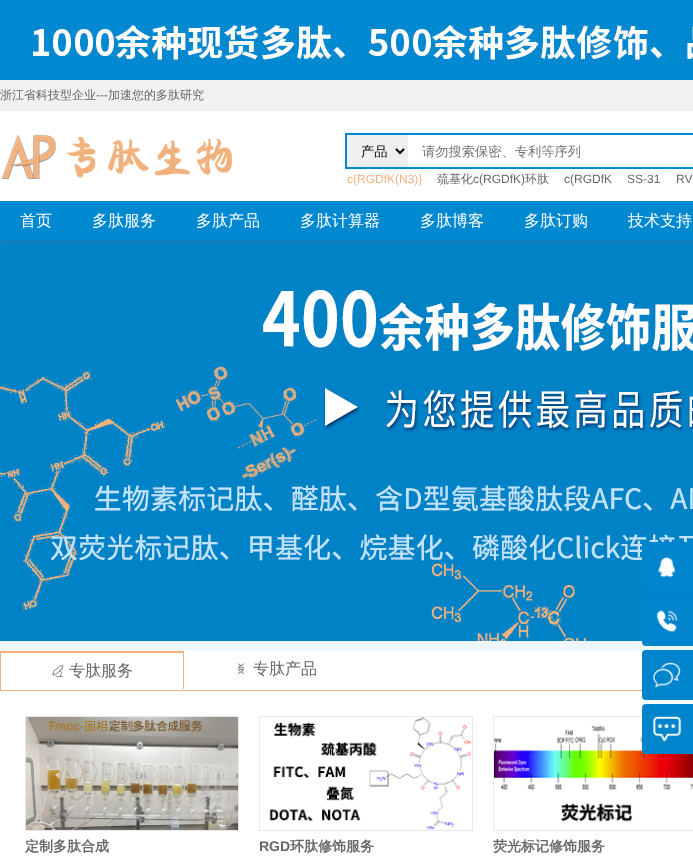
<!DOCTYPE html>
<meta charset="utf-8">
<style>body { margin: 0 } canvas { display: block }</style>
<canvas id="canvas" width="693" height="858"></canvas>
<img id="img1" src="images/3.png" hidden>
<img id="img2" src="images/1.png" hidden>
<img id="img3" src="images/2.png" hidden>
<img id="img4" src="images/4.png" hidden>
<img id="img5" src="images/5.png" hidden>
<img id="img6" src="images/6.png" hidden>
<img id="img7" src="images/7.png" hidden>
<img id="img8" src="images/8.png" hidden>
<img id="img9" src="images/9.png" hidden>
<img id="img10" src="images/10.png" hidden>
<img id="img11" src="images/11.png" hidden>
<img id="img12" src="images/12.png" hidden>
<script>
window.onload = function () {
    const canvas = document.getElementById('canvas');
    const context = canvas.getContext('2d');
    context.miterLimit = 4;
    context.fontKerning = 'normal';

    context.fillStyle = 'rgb(237, 246, 251)';
    context.fillRect(0, 0, 693, 858);
    context.drawImage(document.getElementById('img1'), 0, 241, 693, 400);
    context.fillStyle = 'rgb(102, 102, 102)';
    context.filter = 'blur(1.5px)';
    context.beginPath();
    context.rect(0, 0, 693, 241);
    context.fill();
    context.filter = 'none';
    context.drawImage(document.getElementById('img2'), 0, 0, 693, 80);
    context.fillStyle = 'rgb(241, 241, 241)';
    context.fillRect(0, 80, 693, 31);
    context.fillStyle = 'rgb(255, 255, 255)';
    context.fillRect(0, 111, 693, 90);
    context.drawImage(document.getElementById('img3'), 2, 135, 230, 44);
    context.strokeStyle = 'rgb(0, 137, 209)';
    context.lineWidth = 2;
    context.strokeRect(346, 134, 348, 34);
    context.fillStyle = 'rgb(239, 239, 239)';
    context.fillRect(347, 135, 61, 32);
    context.beginPath();
    context.moveTo(396, 149);
    context.lineTo(400, 153);
    context.lineTo(404, 149);
    context.strokeStyle = 'rgb(0, 0, 0)';
    context.stroke();
    context.fillStyle = 'rgb(0, 137, 209)';
    context.fillRect(0, 201, 693, 40);
    context.fillStyle = 'rgb(255, 255, 255)';
    context.fillRect(0, 651, 693, 207);
    context.fillStyle = 'rgb(241, 177, 125)';
    context.fillRect(0, 690, 642, 1);
    context.fillRect(0, 651, 184, 2);
    context.fillRect(183, 651, 1, 39);
    context.fillStyle = 'rgb(255, 255, 255)';
    context.fillRect(183, 689, 1, 1);
    context.fillStyle = 'rgb(241, 177, 125)';
    context.fillRect(0, 651, 1, 39);
    context.drawImage(document.getElementById('img4'), 51, 664, 13, 13);
    context.drawImage(document.getElementById('img5'), 238, 663, 6, 12);
    context.strokeStyle = 'rgb(233, 233, 233)';
    context.lineWidth = 1;
    context.strokeRect(25.5, 716.5, 213, 114);
    context.drawImage(document.getElementById('img6'), 26, 717, 212, 113);
    context.strokeRect(259.5, 716.5, 213, 114);
    context.drawImage(document.getElementById('img7'), 269, 717, 203, 113);
    context.strokeRect(493.5, 716.5, 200, 114);
    context.drawImage(document.getElementById('img8'), 494, 725, 199, 97);
    context.fillStyle = 'rgb(0, 133, 205)';
    context.beginPath();
    context.roundRect(642, 542, 51, 50, [4, 0, 0, 4]);
    context.fill();
    context.drawImage(document.getElementById('img9'), 658, 557, 18, 21);
    context.beginPath();
    context.roundRect(642, 596, 51, 50, [4, 0, 0, 4]);
    context.fill();
    context.drawImage(document.getElementById('img10'), 656, 610, 22, 22);
    context.beginPath();
    context.roundRect(642, 650, 51, 50, [4, 0, 0, 4]);
    context.fill();
    context.drawImage(document.getElementById('img11'), 653, 662, 28, 26);
    context.beginPath();
    context.roundRect(642, 704, 51, 50, [4, 0, 0, 4]);
    context.fill();
    context.drawImage(document.getElementById('img12'), 653, 716, 29, 26);
    context.font = '500 12px WenQuanYi Zen Hei';
    context.fillStyle = 'rgb(102, 102, 102)';
    context.fillText('浙江省科技型企业', 0, 99);
    context.font = '12px Liberation Sans';
    context.fillText('---', 96, 99);
    context.font = '500 12px WenQuanYi Zen Hei';
    context.fillText('加速您的多肽研究', 108, 99);
    context.font = '500 13.25px WenQuanYi Zen Hei';
    context.fillStyle = 'rgb(0, 0, 0)';
    context.fillText('产品', 361, 156);
    context.fillStyle = 'rgb(117, 117, 117)';
    context.fillText('请勿搜索保密、专利等序列', 422, 156);
    context.font = '12px Liberation Sans';
    context.fillStyle = 'rgb(241, 177, 125)';
    context.fillText('c{RGDfK(N3)}', 347, 183);
    context.font = '500 12px WenQuanYi Zen Hei';
    context.fillStyle = 'rgb(102, 102, 102)';
    context.fillText('巯基化', 437, 183);
    context.font = '12px Liberation Sans';
    context.fillText('c(RGDfK)', 473, 183);
    context.font = '500 12px WenQuanYi Zen Hei';
    context.fillText('环肽', 525, 183);
    context.font = '12px Liberation Sans';
    context.fillText('c(RGDfK', 564, 183);
    context.fillText('SS-31', 627, 183);
    context.fillText('RV', 676, 183);
    context.font = '500 16px WenQuanYi Zen Hei';
    context.fillStyle = 'rgb(255, 255, 255)';
    context.fillText('首页', 20, 226);
    context.fillText('多肽服务', 92, 226);
    context.fillText('多肽产品', 196, 226);
    context.fillText('多肽计算器', 300, 226);
    context.fillText('多肽博客', 420, 226);
    context.fillText('多肽订购', 524, 226);
    context.fillText('技术支持', 628, 226);
    context.fillStyle = 'rgb(102, 102, 102)';
    context.fillText('专肽服务', 69, 676);
    context.fillText('专肽产品', 253, 674);
    context.font = 'bold 14px WenQuanYi Zen Hei';
    context.fillText('定制多肽合成', 25, 851);
    context.font = 'bold 14px Liberation Sans';
    context.fillText('RGD', 259, 851);
    context.font = 'bold 14px WenQuanYi Zen Hei';
    context.fillText('环肽修饰服务', 290, 851);
    context.fillText('荧光标记修饰服务', 493, 851);
};
</script>
